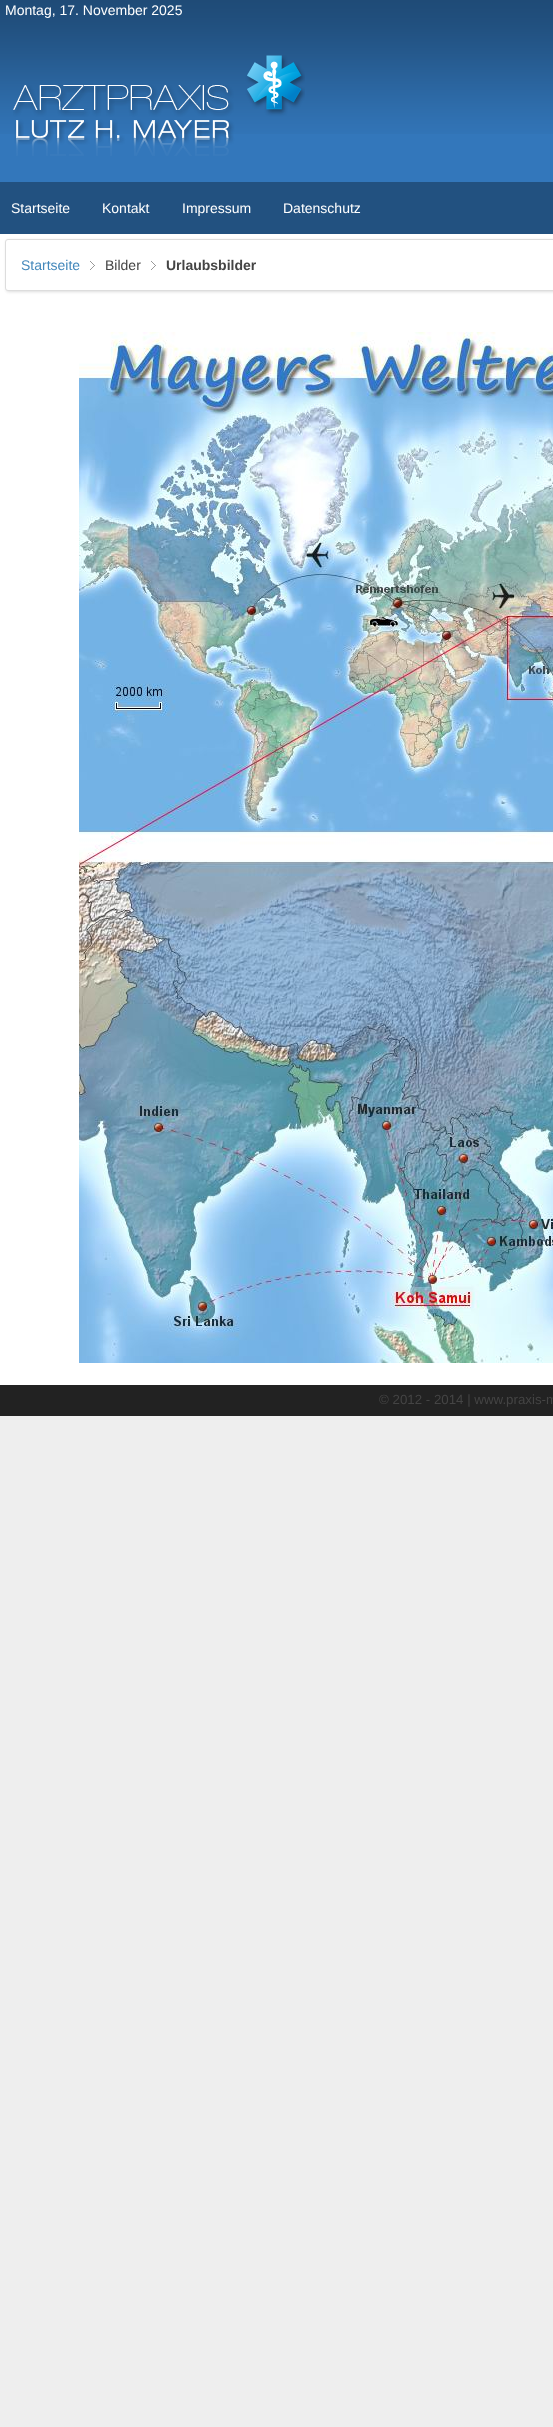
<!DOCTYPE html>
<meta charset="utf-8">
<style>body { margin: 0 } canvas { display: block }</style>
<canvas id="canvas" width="553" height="2427"></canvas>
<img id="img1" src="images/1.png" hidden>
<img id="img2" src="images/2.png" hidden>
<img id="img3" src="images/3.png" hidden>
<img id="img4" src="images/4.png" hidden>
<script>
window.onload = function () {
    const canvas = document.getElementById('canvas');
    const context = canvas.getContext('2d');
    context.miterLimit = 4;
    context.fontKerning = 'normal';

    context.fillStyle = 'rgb(238, 238, 238)';
    context.fillRect(0, 0, 553, 2427);
    context.fillStyle = 'rgb(51, 119, 187)';
    context.fillRect(0, 134, 553, 48);
    context.drawImage(document.getElementById('img1'), 0, 0, 553, 134);
    context.drawImage(document.getElementById('img2'), 13, 55, 292, 101);
    context.fillStyle = 'rgb(34, 81, 128)';
    context.fillRect(0, 182, 553, 52);
    context.fillStyle = 'rgb(255, 255, 255)';
    context.fillRect(0, 234, 553, 1151);
    context.fillStyle = 'rgb(221, 221, 221)';
    context.filter = 'blur(1.5px)';
    context.beginPath();
    context.roundRect(6, 240, 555, 52, 3);
    context.fill();
    context.filter = 'none';
    context.fillStyle = 'rgb(255, 255, 255)';
    context.beginPath();
    context.roundRect(5.5, 239.5, 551, 51, 2.5);
    context.fill();
    context.strokeStyle = 'rgb(221, 221, 221)';
    context.stroke();
    context.drawImage(document.getElementById('img3'), 90, 261, 5, 9);
    context.drawImage(document.getElementById('img3'), 151, 261, 5, 9);
    context.drawImage(document.getElementById('img4'), 79, 332, 474, 1031);
    context.fillStyle = 'rgb(34, 34, 34)';
    context.fillRect(0, 1385, 553, 31);
    context.font = '14px Liberation Sans';
    context.fillStyle = 'rgb(255, 255, 255)';
    context.fillText('Montag, 17. November 2025', 5, 15);
    context.fillText('Startseite', 11, 213);
    context.fillText('Kontakt', 102, 213);
    context.fillText('Impressum', 182, 213);
    context.fillText('Datenschutz', 283, 213);
    context.fillStyle = 'rgb(68, 136, 187)';
    context.fillText('Startseite', 21, 270);
    context.fillStyle = 'rgb(68, 68, 68)';
    context.fillText('Bilder', 105, 270);
    context.font = 'bold 14px Liberation Sans';
    context.fillText('Urlaubsbilder', 166, 270);
    context.font = '13.3px Liberation Sans';
    context.fillText('© 2012 - 2014 | www.praxis-m', 379, 1404);
};
</script>
